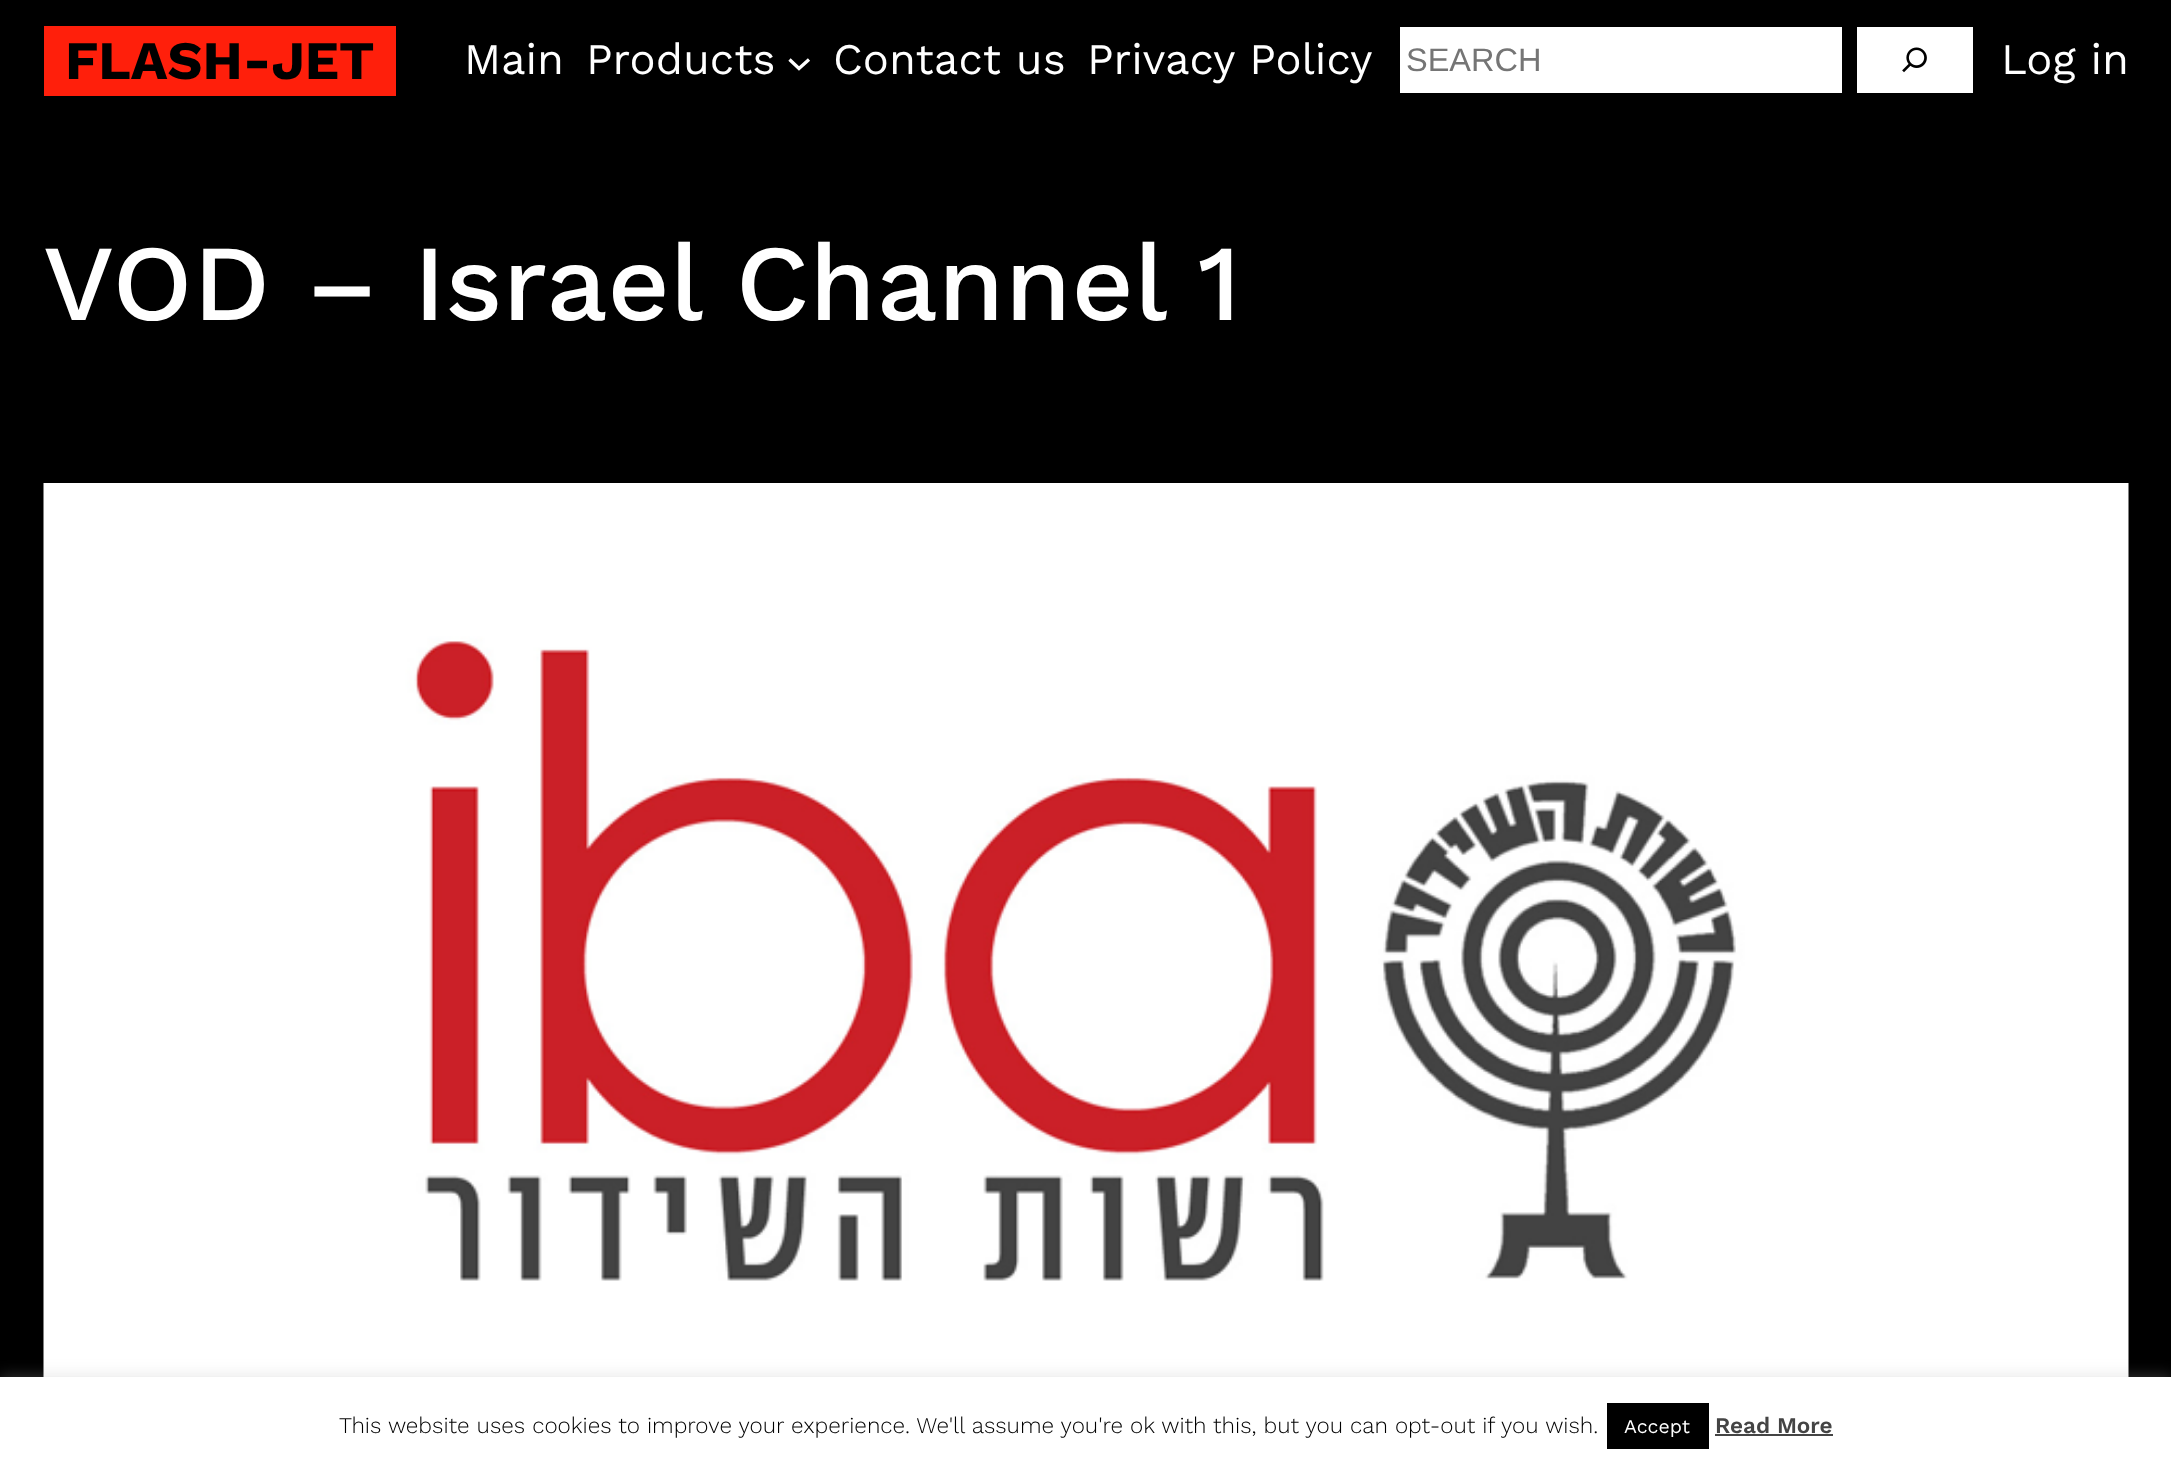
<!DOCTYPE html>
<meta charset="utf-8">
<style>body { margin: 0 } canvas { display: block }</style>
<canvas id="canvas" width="2171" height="1467"></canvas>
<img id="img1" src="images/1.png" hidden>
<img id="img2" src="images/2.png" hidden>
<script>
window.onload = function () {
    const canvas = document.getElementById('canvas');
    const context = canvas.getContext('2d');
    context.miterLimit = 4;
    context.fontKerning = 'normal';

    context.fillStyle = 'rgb(0, 0, 0)';
    context.fillRect(0, 0, 2171, 1467);
    context.fillStyle = 'rgb(255, 31, 11)';
    context.fillRect(44, 26, 352, 70);
    context.beginPath();
    context.moveTo(789.5, 59.5);
    context.lineTo(799, 68.5);
    context.lineTo(809, 59.5);
    context.strokeStyle = 'rgb(255, 255, 255)';
    context.lineWidth = 3.3;
    context.stroke();
    context.fillStyle = 'rgb(255, 255, 255)';
    context.fillRect(1400, 27, 442, 66);
    context.fillRect(1857, 27, 116, 66);
    context.drawImage(document.getElementById('img1'), 1902, 47, 25, 26);
    context.drawImage(document.getElementById('img2'), 43, 483, 2086, 894);
    context.fillStyle = 'rgba(172, 171, 171, 0.3)';
    context.filter = 'blur(7.5px)';
    context.beginPath();
    context.rect(0, 1376, 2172, 90);
    context.fill();
    context.filter = 'none';
    context.fillStyle = 'rgb(255, 255, 255)';
    context.fillRect(0, 1377, 2171, 90);
    context.fillStyle = 'rgb(0, 0, 0)';
    context.fillRect(1607, 1403, 102, 46);
    context.fillStyle = 'rgb(68, 68, 68)';
    context.fillRect(1715, 1434, 118, 2);
    context.font = 'bold 54.25px Work Sans';
    context.fillStyle = 'rgb(0, 0, 0)';
    context.fillText('FLASH-JET', 65, 79);
    context.font = '43.5px Work Sans';
    context.fillStyle = 'rgb(255, 255, 255)';
    context.fillText('Main', 464, 74);
    context.fillText('Products', 586, 74);
    context.fillText('Contact us', 833, 74);
    context.fillText('Privacy Policy', 1087, 74);
    context.font = '32.5px Liberation Sans';
    context.fillStyle = 'rgb(117, 117, 117)';
    context.fillText('SEARCH', 1406, 71);
    context.font = '43.5px Work Sans';
    context.fillStyle = 'rgb(255, 255, 255)';
    context.fillText('Log in', 2001, 74);
    context.font = '500 108px Work Sans';
    context.fillText('VOD – Israel Channel 1', 43, 320);
    context.font = '300 22.5px Work Sans';
    context.fillStyle = 'rgb(0, 0, 0)';
    context.fillText('This website uses cookies to improve your experience. We\'ll assume you\'re ok with this, but you can opt-out if you wish.', 339, 1433);
    context.font = '19.5px Work Sans';
    context.fillStyle = 'rgb(255, 255, 255)';
    context.fillText('Accept', 1624, 1433);
    context.font = '600 22.5px Work Sans';
    context.fillStyle = 'rgb(68, 68, 68)';
    context.fillText('Read More', 1715, 1433);
};
</script>
